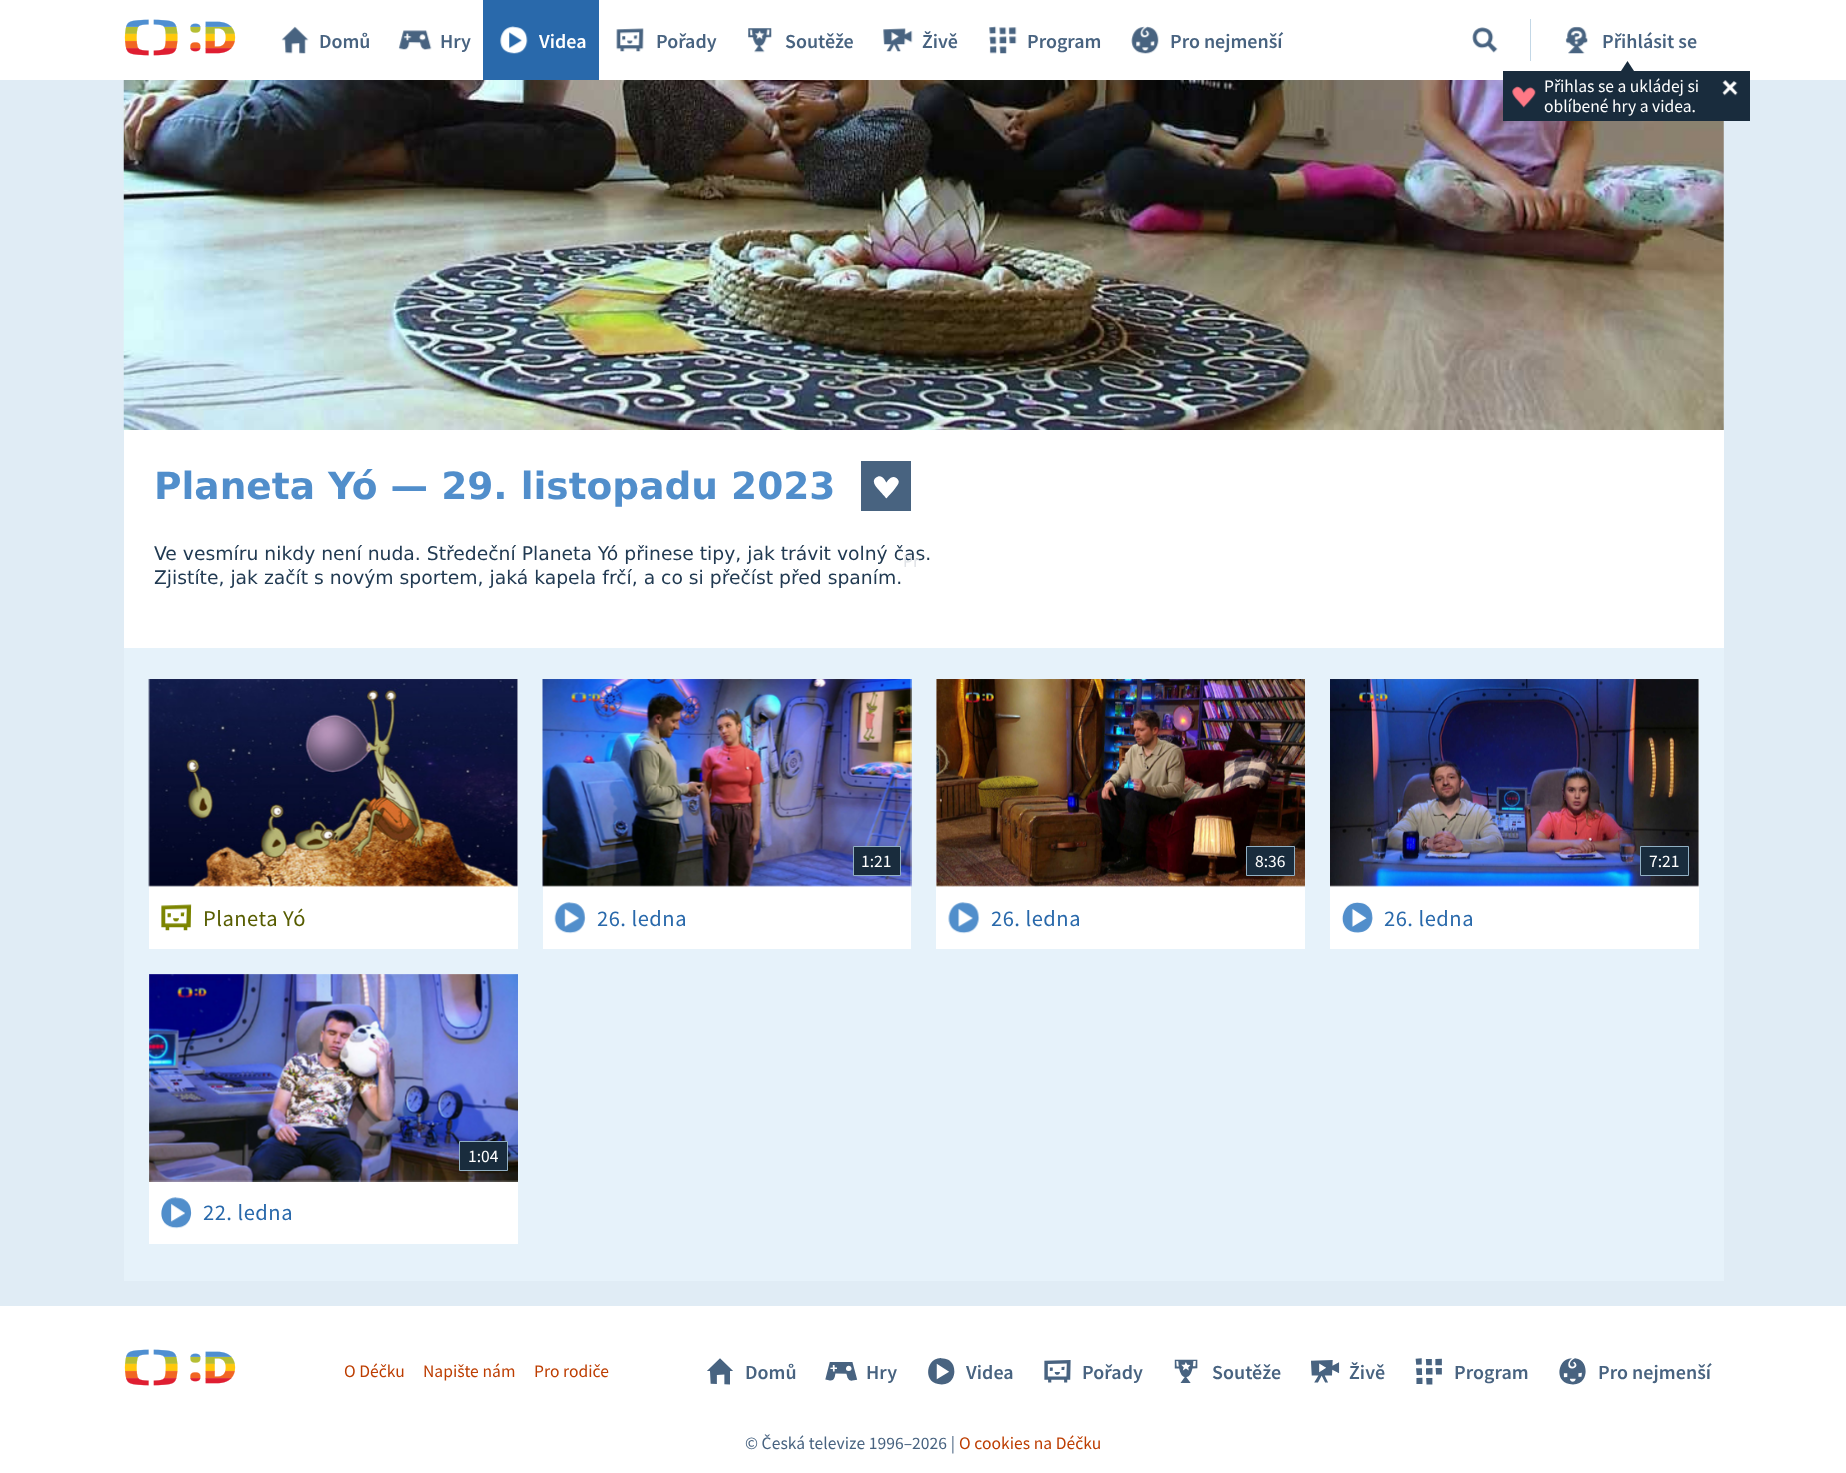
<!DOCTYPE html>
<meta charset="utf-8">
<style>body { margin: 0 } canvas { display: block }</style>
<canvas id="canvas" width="1846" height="1473"></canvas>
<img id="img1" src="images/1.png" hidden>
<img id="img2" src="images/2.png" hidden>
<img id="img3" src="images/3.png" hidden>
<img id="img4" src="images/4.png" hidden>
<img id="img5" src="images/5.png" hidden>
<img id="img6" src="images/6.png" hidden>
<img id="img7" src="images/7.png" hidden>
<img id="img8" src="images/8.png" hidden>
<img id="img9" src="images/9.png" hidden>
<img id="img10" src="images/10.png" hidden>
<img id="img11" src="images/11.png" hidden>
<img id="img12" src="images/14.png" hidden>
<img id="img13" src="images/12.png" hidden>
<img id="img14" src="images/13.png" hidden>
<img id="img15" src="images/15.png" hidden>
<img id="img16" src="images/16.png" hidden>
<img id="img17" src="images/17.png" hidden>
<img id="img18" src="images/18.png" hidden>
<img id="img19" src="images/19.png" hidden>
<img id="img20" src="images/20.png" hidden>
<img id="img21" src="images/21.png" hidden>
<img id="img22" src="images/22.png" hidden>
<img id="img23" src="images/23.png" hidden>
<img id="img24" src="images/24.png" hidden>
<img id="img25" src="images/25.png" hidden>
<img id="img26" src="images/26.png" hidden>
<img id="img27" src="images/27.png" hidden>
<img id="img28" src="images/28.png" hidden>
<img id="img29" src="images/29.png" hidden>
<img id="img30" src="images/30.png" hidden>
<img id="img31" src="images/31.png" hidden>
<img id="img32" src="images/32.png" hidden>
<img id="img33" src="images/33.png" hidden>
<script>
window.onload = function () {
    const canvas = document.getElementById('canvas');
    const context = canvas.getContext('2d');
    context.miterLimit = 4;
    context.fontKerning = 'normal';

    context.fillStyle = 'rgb(224, 236, 245)';
    context.fillRect(0, 0, 1846, 1473);
    context.fillStyle = 'rgb(255, 255, 255)';
    context.fillRect(0, 0, 1846, 80);
    context.drawImage(document.getElementById('img1'), 124, 19, 112, 37);
    context.drawImage(document.getElementById('img2'), 281, 26, 28, 28);
    context.drawImage(document.getElementById('img3'), 398, 30, 34, 20);
    context.fillStyle = 'rgb(41, 105, 171)';
    context.fillRect(483, 0, 116, 80);
    context.drawImage(document.getElementById('img4'), 500, 26, 28, 28);
    context.drawImage(document.getElementById('img5'), 616, 28, 28, 24);
    context.drawImage(document.getElementById('img6'), 748, 28, 24, 25);
    context.drawImage(document.getElementById('img7'), 883, 28, 30, 24);
    context.drawImage(document.getElementById('img8'), 989, 26, 28, 28);
    context.drawImage(document.getElementById('img9'), 1131, 26, 28, 28);
    context.drawImage(document.getElementById('img10'), 1472, 27, 26, 26);
    context.fillStyle = 'rgb(195, 215, 230)';
    context.fillRect(1530, 19, 1, 42);
    context.drawImage(document.getElementById('img11'), 1565, 26, 23, 28);
    context.drawImage(document.getElementById('img12'), 123, 80, 1601, 350);
    context.fillStyle = 'rgb(25, 44, 61)';
    context.fillRect(1503, 71, 247, 50);
    context.beginPath();
    context.moveTo(1634, 71);
    context.lineTo(1621, 71);
    context.lineTo(1627.5, 61);
    context.closePath();
    context.fill();
    context.drawImage(document.getElementById('img13'), 1512, 86, 24, 22);
    context.drawImage(document.getElementById('img14'), 1722, 80, 16, 16);
    context.fillStyle = 'rgb(255, 255, 255)';
    context.fillRect(124, 430, 1600, 218);
    context.fillStyle = 'rgb(72, 99, 128)';
    context.fillRect(861, 461, 50, 50);
    context.drawImage(document.getElementById('img15'), 873, 476, 26, 23);
    context.fillStyle = 'rgb(230, 242, 250)';
    context.fillRect(124, 648, 1600, 633);
    context.fillStyle = 'rgb(255, 255, 255)';
    context.fillRect(149, 679, 369, 270);
    context.drawImage(document.getElementById('img16'), 148, 679, 370, 208);
    context.drawImage(document.getElementById('img17'), 161, 904, 31, 27);
    context.fillRect(543, 679, 368, 270);
    context.drawImage(document.getElementById('img18'), 542, 679, 370, 208);
    context.fillStyle = 'rgb(25, 44, 61)';
    context.beginPath();
    context.rect(853.5, 846.5, 47, 29);
    context.fill();
    context.strokeStyle = 'rgb(145, 176, 196)';
    context.stroke();
    context.drawImage(document.getElementById('img19'), 554, 902, 32, 32);
    context.fillStyle = 'rgb(255, 255, 255)';
    context.fillRect(936, 679, 369, 270);
    context.drawImage(document.getElementById('img20'), 936, 679, 369, 208);
    context.fillStyle = 'rgb(25, 44, 61)';
    context.beginPath();
    context.rect(1246.5, 846.5, 48, 29);
    context.fill();
    context.stroke();
    context.drawImage(document.getElementById('img21'), 948, 902, 32, 32);
    context.fillStyle = 'rgb(255, 255, 255)';
    context.fillRect(1330, 679, 369, 270);
    context.drawImage(document.getElementById('img22'), 1330, 679, 369, 208);
    context.fillStyle = 'rgb(25, 44, 61)';
    context.beginPath();
    context.rect(1640.5, 846.5, 48, 29);
    context.fill();
    context.stroke();
    context.drawImage(document.getElementById('img23'), 1341, 902, 32, 31);
    context.fillStyle = 'rgb(255, 255, 255)';
    context.fillRect(149, 1181, 369, 63);
    context.drawImage(document.getElementById('img24'), 149, 974, 369, 208);
    context.fillStyle = 'rgb(25, 44, 61)';
    context.beginPath();
    context.rect(459.5, 1141.5, 48, 29);
    context.fill();
    context.stroke();
    context.drawImage(document.getElementById('img25'), 161, 1197, 31, 32);
    context.fillStyle = 'rgb(255, 255, 255)';
    context.fillRect(0, 1306, 1846, 167);
    context.drawImage(document.getElementById('img1'), 124, 1349, 112, 37);
    context.drawImage(document.getElementById('img26'), 707, 1358, 26, 27);
    context.drawImage(document.getElementById('img27'), 825, 1362, 33, 19);
    context.drawImage(document.getElementById('img28'), 928, 1358, 27, 27);
    context.drawImage(document.getElementById('img29'), 1044, 1360, 27, 23);
    context.drawImage(document.getElementById('img30'), 1174, 1359, 24, 24);
    context.drawImage(document.getElementById('img31'), 1311, 1360, 29, 23);
    context.drawImage(document.getElementById('img32'), 1415, 1358, 27, 27);
    context.drawImage(document.getElementById('img33'), 1559, 1358, 27, 27);
    context.font = '600 20px Source Sans Pro';
    context.fillStyle = 'rgb(72, 99, 128)';
    context.fillText('Domů', 319, 48);
    context.fillText('Hry', 440, 48);
    context.fillStyle = 'rgb(255, 255, 255)';
    context.fillText('Videa', 539, 48);
    context.fillStyle = 'rgb(72, 99, 128)';
    context.fillText('Pořady', 656, 48);
    context.fillText('Soutěže', 785, 48);
    context.fillText('Živě', 922, 48);
    context.fillText('Program', 1027, 48);
    context.fillText('Pro nejmenší', 1170, 48);
    context.fillText('Přihlásit se', 1602, 48);
    context.font = '17.5px Source Sans Pro';
    context.fillStyle = 'rgb(255, 255, 255)';
    context.fillText('Přihlas se a ukládej si', 1544, 92);
    context.fillText('oblíbené hry a videa.', 1544, 112);
    context.font = 'bold 37.5px DejaVu Sans';
    context.fillStyle = 'rgb(81, 142, 203)';
    context.fillText('Planeta Yó — 29. listopadu 2023', 154, 499);
    context.font = '18.75px DejaVu Sans';
    context.fillStyle = 'rgb(33, 58, 82)';
    context.fillText('Ve vesmíru nikdy není nuda. Středeční Planeta Yó přinese tipy, jak trávit volný čas.', 154, 560);
    context.font = '17.5px Source Sans Pro';
    context.fillStyle = 'rgb(224, 227, 231)';
    context.fillText('Pr', 903, 567);
    context.font = '18.75px DejaVu Sans';
    context.fillStyle = 'rgb(33, 58, 82)';
    context.fillText('Zjistíte, jak začít s novým sportem, jaká kapela frčí, a co si přečíst před spaním.', 154, 584);
    context.letterSpacing = '0.5px';
    context.font = '22.5px Source Sans Pro';
    context.fillStyle = 'rgb(87, 93, 0)';
    context.fillText('Planeta Yó', 203, 926);
    context.letterSpacing = '0px';
    context.font = '17.5px Source Sans Pro';
    context.fillStyle = 'rgb(255, 255, 255)';
    context.fillText('1:21', 861, 867);
    context.letterSpacing = '0.5px';
    context.font = '22.5px Source Sans Pro';
    context.fillStyle = 'rgb(41, 105, 171)';
    context.fillText('26. ledna', 597, 926);
    context.letterSpacing = '0px';
    context.font = '17.5px Source Sans Pro';
    context.fillStyle = 'rgb(255, 255, 255)';
    context.fillText('8:36', 1255, 867);
    context.letterSpacing = '0.5px';
    context.font = '22.5px Source Sans Pro';
    context.fillStyle = 'rgb(41, 105, 171)';
    context.fillText('26. ledna', 991, 926);
    context.letterSpacing = '0px';
    context.font = '17.5px Source Sans Pro';
    context.fillStyle = 'rgb(255, 255, 255)';
    context.fillText('7:21', 1649, 867);
    context.letterSpacing = '0.5px';
    context.font = '22.5px Source Sans Pro';
    context.fillStyle = 'rgb(41, 105, 171)';
    context.fillText('26. ledna', 1384, 926);
    context.letterSpacing = '0px';
    context.font = '17.5px Source Sans Pro';
    context.fillStyle = 'rgb(255, 255, 255)';
    context.fillText('1:04', 468, 1162);
    context.letterSpacing = '0.5px';
    context.font = '22.5px Source Sans Pro';
    context.fillStyle = 'rgb(41, 105, 171)';
    context.fillText('22. ledna', 203, 1220);
    context.letterSpacing = '0.05px';
    context.font = '17.5px Source Sans Pro';
    context.fillStyle = 'rgb(189, 61, 0)';
    context.fillText('O Déčku', 344, 1377);
    context.fillText('Napište nám', 423, 1377);
    context.fillText('Pro rodiče', 534, 1377);
    context.font = '600 20px Source Sans Pro';
    context.fillStyle = 'rgb(72, 99, 128)';
    context.fillText('Domů', 745, 1379);
    context.fillText('Hry', 866, 1379);
    context.fillText('Videa', 966, 1379);
    context.fillText('Pořady', 1082, 1379);
    context.fillText('Soutěže', 1212, 1379);
    context.fillText('Živě', 1349, 1379);
    context.fillText('Program', 1454, 1379);
    context.fillText('Pro nejmenší', 1598, 1379);
    context.font = '17.5px Source Sans Pro';
    context.fillText('© Česká televize 1996–2026 |', 745, 1449);
    context.fillStyle = 'rgb(189, 61, 0)';
    context.fillText('O cookies na Déčku', 959, 1449);
};
</script>
